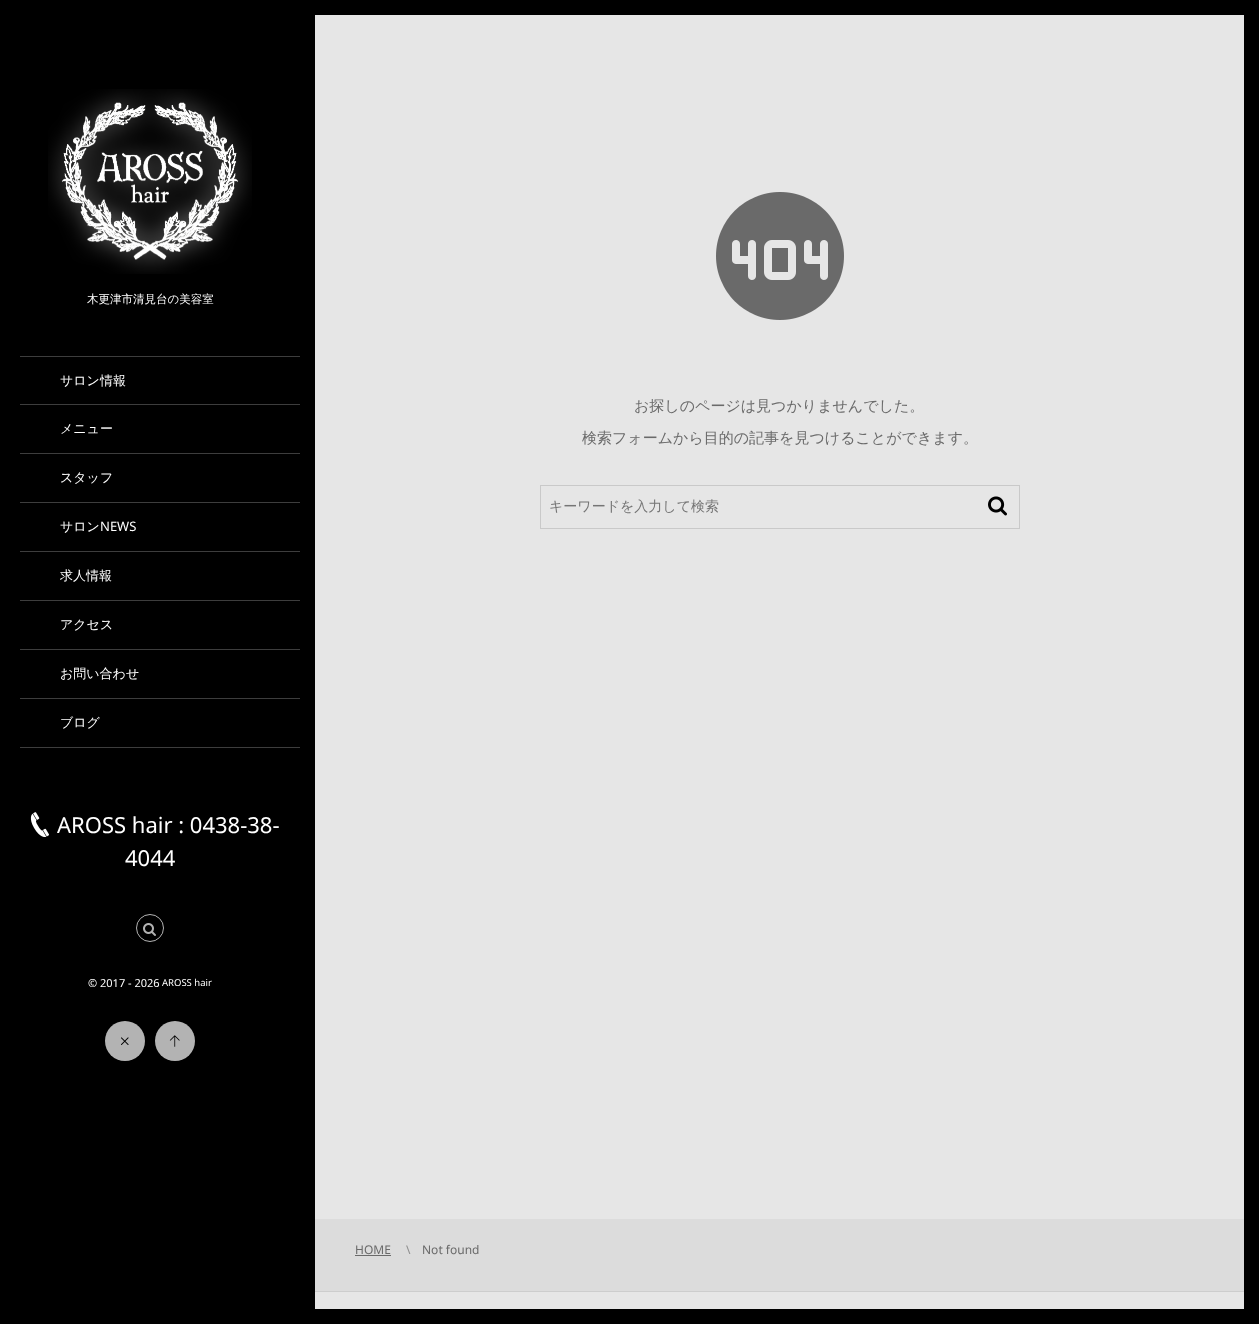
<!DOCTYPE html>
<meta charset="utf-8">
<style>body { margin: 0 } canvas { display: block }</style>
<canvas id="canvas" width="1259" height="1324"></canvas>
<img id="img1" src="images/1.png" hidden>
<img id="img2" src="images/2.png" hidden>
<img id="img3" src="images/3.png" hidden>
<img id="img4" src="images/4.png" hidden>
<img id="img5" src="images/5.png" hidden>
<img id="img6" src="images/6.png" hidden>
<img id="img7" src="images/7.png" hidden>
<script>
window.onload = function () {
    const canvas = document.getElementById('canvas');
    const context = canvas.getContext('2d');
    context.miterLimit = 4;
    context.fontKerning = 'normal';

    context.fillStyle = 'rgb(0, 0, 0)';
    context.fillRect(0, 0, 1259, 1324);
    context.drawImage(document.getElementById('img1'), 48, 89, 204, 185);
    context.fillStyle = 'rgb(61, 61, 61)';
    context.fillRect(20, 356, 280, 1);
    context.fillRect(20, 404, 280, 1);
    context.fillRect(20, 453, 280, 1);
    context.fillRect(20, 502, 280, 1);
    context.fillRect(20, 551, 280, 1);
    context.fillRect(20, 600, 280, 1);
    context.fillRect(20, 649, 280, 1);
    context.fillRect(20, 698, 280, 1);
    context.fillRect(20, 747, 280, 1);
    context.drawImage(document.getElementById('img2'), 30, 812, 19, 25);
    context.beginPath();
    context.arc(150, 928, 13.5, 0, 2 * Math.PI);
    context.strokeStyle = 'rgb(179, 179, 179)';
    context.stroke();
    context.drawImage(document.getElementById('img3'), 143, 923, 13, 13);
    context.fillStyle = 'rgb(179, 179, 179)';
    context.beginPath();
    context.arc(125, 1041, 20, 0, 2 * Math.PI);
    context.fill();
    context.drawImage(document.getElementById('img4'), 121, 1037, 8, 8);
    context.beginPath();
    context.arc(175, 1041, 20, 0, 2 * Math.PI);
    context.fill();
    context.drawImage(document.getElementById('img5'), 169, 1035, 11, 12);
    context.fillStyle = 'rgb(230, 230, 230)';
    context.fillRect(315, 15, 929, 1294);
    context.drawImage(document.getElementById('img6'), 716, 192, 128, 128);
    context.strokeStyle = 'rgb(201, 201, 201)';
    context.strokeRect(540.5, 485.5, 479, 43);
    context.drawImage(document.getElementById('img7'), 988, 496, 19, 20);
    context.fillStyle = 'rgb(220, 220, 220)';
    context.fillRect(315, 1219, 929, 72);
    context.fillStyle = 'rgb(106, 106, 106)';
    context.fillRect(355, 1255, 36, 1);
    context.fillStyle = 'rgb(205, 205, 205)';
    context.fillRect(315, 1291, 929, 1);
    context.font = '500 11.5px WenQuanYi Zen Hei';
    context.fillStyle = 'rgb(255, 255, 255)';
    context.fillText('木更津市清見台の美容室', 87, 303);
    context.font = '500 13px WenQuanYi Zen Hei';
    context.fillText('サロン情報', 60, 385);
    context.fillText('メニュー', 60, 433);
    context.fillText('スタッフ', 60, 482);
    context.fillText('サロン', 60, 531);
    context.font = '13px Noto Sans';
    context.fillText('NEWS', 100, 531);
    context.font = '500 13px WenQuanYi Zen Hei';
    context.fillText('求人情報', 60, 580);
    context.fillText('アクセス', 60, 629);
    context.fillText('お問い合わせ', 60, 678);
    context.fillText('ブログ', 60, 727);
    context.font = '22px Noto Sans';
    context.fillText('AROSS hair : 0438-38-', 57, 833);
    context.fillText('4044', 125, 866);
    context.font = '11px Noto Sans';
    context.fillText('© 2017 - 2026', 88, 987);
    context.font = '9.5px Noto Sans';
    context.fillText('AROSS hair', 162, 986);
    context.font = '500 15px WenQuanYi Zen Hei';
    context.fillStyle = 'rgb(106, 106, 106)';
    context.fillText('お探しのページは見つかりませんでした。', 634, 411);
    context.fillText('検索フォームから目的の記事を見つけることができます。', 582, 443);
    context.font = '500 14px WenQuanYi Zen Hei';
    context.fillStyle = 'rgb(117, 117, 117)';
    context.fillText('キーワードを入力して検索', 549, 511);
    context.font = '12px Noto Sans';
    context.fillStyle = 'rgb(106, 106, 106)';
    context.fillText('HOME', 355, 1254);
    context.fillStyle = 'rgb(142, 142, 142)';
    context.fillText('\\', 406, 1254);
    context.fillStyle = 'rgb(106, 106, 106)';
    context.fillText('Not found', 422, 1254);
};
</script>
